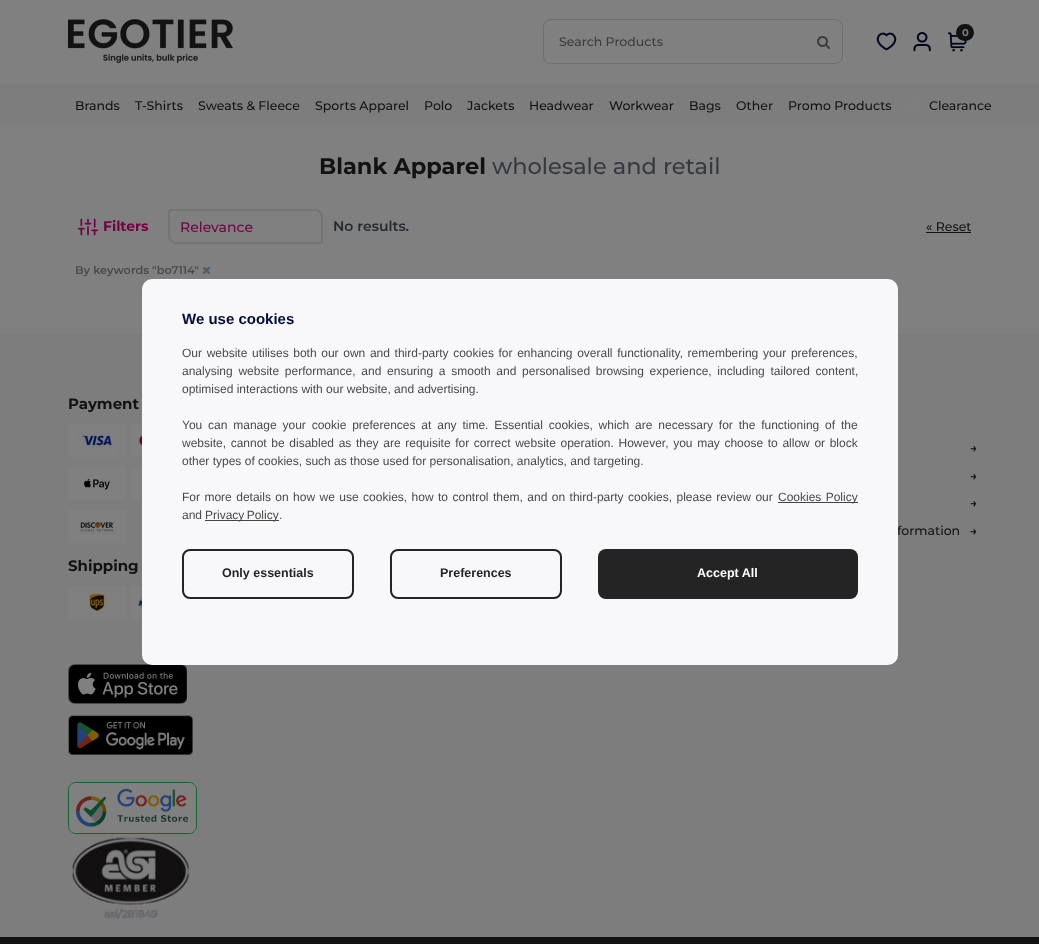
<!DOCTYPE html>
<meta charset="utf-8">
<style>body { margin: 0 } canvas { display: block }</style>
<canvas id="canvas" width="1039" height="944"></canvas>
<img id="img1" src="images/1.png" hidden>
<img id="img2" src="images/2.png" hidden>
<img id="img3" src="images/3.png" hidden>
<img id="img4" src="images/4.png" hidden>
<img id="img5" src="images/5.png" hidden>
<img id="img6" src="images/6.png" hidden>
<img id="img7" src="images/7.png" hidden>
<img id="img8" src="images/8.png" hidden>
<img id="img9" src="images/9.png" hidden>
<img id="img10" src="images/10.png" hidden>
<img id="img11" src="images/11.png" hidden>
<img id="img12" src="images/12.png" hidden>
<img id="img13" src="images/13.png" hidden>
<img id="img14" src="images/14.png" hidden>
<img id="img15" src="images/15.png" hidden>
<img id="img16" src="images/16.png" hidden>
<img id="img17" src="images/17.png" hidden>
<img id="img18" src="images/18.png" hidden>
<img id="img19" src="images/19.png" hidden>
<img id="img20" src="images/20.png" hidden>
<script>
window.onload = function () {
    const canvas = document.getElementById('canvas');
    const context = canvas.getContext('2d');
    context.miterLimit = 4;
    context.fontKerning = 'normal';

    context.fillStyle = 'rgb(128, 128, 128)';
    context.fillRect(0, 0, 1039, 944);
    context.drawImage(document.getElementById('img1'), 68, 19, 165, 45);
    context.drawImage(document.getElementById('img2'), 876, 32, 21, 19);
    context.drawImage(document.getElementById('img3'), 913, 32, 18, 20);
    context.drawImage(document.getElementById('img4'), 948, 32, 19, 20);
    context.fillStyle = 'rgb(18, 18, 18)';
    context.beginPath();
    context.roundRect(956, 24, 18, 17, 8.5);
    context.fill();
    context.beginPath();
    context.roundRect(543.5, 19.5, 299, 44, 7.5);
    context.strokeStyle = 'rgb(111, 111, 111)';
    context.stroke();
    context.drawImage(document.getElementById('img5'), 817, 36, 13, 13);
    context.fillStyle = 'rgb(125, 125, 125)';
    context.fillRect(0, 84, 1039, 43);
    context.drawImage(document.getElementById('img6'), 906, 98, 15, 15);
    context.drawImage(document.getElementById('img7'), 78, 218, 20, 18);
    context.beginPath();
    context.roundRect(169, 210, 153, 33, [2, 7, 2, 7]);
    context.strokeStyle = 'rgb(115, 116, 117)';
    context.lineWidth = 2;
    context.stroke();
    context.fillStyle = 'rgb(18, 18, 18)';
    context.fillRect(926, 232, 45, 1);
    context.drawImage(document.getElementById('img8'), 202, 266, 9, 8);
    context.fillStyle = 'rgb(125, 125, 125)';
    context.fillRect(0, 334, 1039, 603);
    context.drawImage(document.getElementById('img9'), 68, 424, 58, 33);
    context.drawImage(document.getElementById('img10'), 131, 424, 11, 33);
    context.drawImage(document.getElementById('img11'), 68, 467, 58, 33);
    context.drawImage(document.getElementById('img12'), 131, 467, 11, 33);
    context.drawImage(document.getElementById('img13'), 68, 510, 58, 33);
    context.drawImage(document.getElementById('img14'), 68, 586, 58, 33);
    context.drawImage(document.getElementById('img15'), 131, 586, 11, 33);
    context.drawImage(document.getElementById('img16'), 68, 664, 119, 40);
    context.drawImage(document.getElementById('img17'), 68, 715, 125, 40);
    context.beginPath();
    context.roundRect(68.5, 782.5, 128, 51, 7.5);
    context.strokeStyle = 'rgb(17, 99, 47)';
    context.lineWidth = 1;
    context.stroke();
    context.drawImage(document.getElementById('img18'), 69, 783, 127, 50);
    context.drawImage(document.getElementById('img19'), 71, 837, 119, 83);
    context.drawImage(document.getElementById('img20'), 970, 446, 7, 6);
    context.drawImage(document.getElementById('img20'), 970, 474, 7, 6);
    context.drawImage(document.getElementById('img20'), 970, 501, 7, 6);
    context.drawImage(document.getElementById('img20'), 970, 529, 7, 6);
    context.fillStyle = 'rgb(18, 18, 18)';
    context.fillRect(0, 937, 1039, 7);
    context.font = 'bold 10px Montserrat';
    context.fillStyle = 'rgb(128, 128, 128)';
    context.fillText('0', 962, 36);
    context.font = '500 12.5px Montserrat';
    context.fillStyle = 'rgb(60, 60, 60)';
    context.fillText('Search Products', 559, 46);
    context.fillStyle = 'rgb(18, 18, 18)';
    context.fillText('Brands', 75, 110);
    context.fillText('T-Shirts', 135, 110);
    context.fillText('Sweats & Fleece', 198, 110);
    context.fillText('Sports Apparel', 315, 110);
    context.fillText('Polo', 424, 110);
    context.fillText('Jackets', 467, 110);
    context.fillText('Headwear', 529, 110);
    context.fillText('Workwear', 609, 110);
    context.fillText('Bags', 689, 110);
    context.fillText('Other', 736, 110);
    context.fillText('Promo Products', 788, 110);
    context.fillText('Clearance', 929, 110);
    context.font = 'bold 22.5px Montserrat';
    context.fillText('Blank Apparel', 319, 174);
    context.font = '500 22.5px Montserrat';
    context.fillStyle = 'rgb(54, 57, 64)';
    context.fillText('wholesale and retail', 492, 174);
    context.font = 'bold 14px Montserrat';
    context.fillStyle = 'rgb(115, 1, 67)';
    context.fillText('Filters', 103, 231);
    context.font = '500 14px Montserrat';
    context.fillText('Relevance', 180, 232);
    context.font = '600 14px Montserrat';
    context.fillStyle = 'rgb(38, 43, 50)';
    context.fillText('No results.', 333, 231);
    context.font = '500 12.5px Montserrat';
    context.fillStyle = 'rgb(18, 18, 18)';
    context.fillText('« Reset', 926, 231);
    context.font = '600 11.25px Montserrat';
    context.fillStyle = 'rgb(73, 73, 73)';
    context.fillText('By keywords "bo7114"', 75, 274);
    context.font = 'bold 15px Montserrat';
    context.fillStyle = 'rgb(18, 18, 18)';
    context.fillText('Payment', 68, 409);
    context.fillText('Shipping', 68, 571);
    context.font = '500 12.5px Montserrat';
    context.fillText('formation', 897, 535);
    context.fillStyle = 'rgb(248, 248, 251)';
    context.beginPath();
    context.roundRect(142, 279, 756, 386, 10);
    context.fill();
    context.fillStyle = 'rgb(36, 36, 36)';
    context.beginPath();
    context.roundRect(598, 549, 260, 50, 8);
    context.fill();
    context.font = 'bold 12.5px Liberation Sans';
    context.fillStyle = 'rgb(255, 255, 255)';
    context.fillText('Accept All', 697, 577);
    context.beginPath();
    context.roundRect(391, 550, 170, 48, 7);
    context.strokeStyle = 'rgb(36, 36, 36)';
    context.lineWidth = 2;
    context.stroke();
    context.fillStyle = 'rgb(36, 36, 36)';
    context.fillText('Preferences', 440, 577);
    context.beginPath();
    context.roundRect(183, 550, 170, 48, 7);
    context.stroke();
    context.fillText('Only essentials', 222, 577);
    context.font = '12px Liberation Sans';
    context.fillStyle = 'rgb(73, 73, 73)';
    context.fillText('.', 279, 519);
    context.fillStyle = 'rgb(69, 69, 69)';
    context.fillRect(205, 520, 74, 1);
    context.wordSpacing = '-1px';
    context.fillStyle = 'rgb(73, 73, 73)';
    context.fillText('Privacy Policy', 205, 519);
    context.wordSpacing = '0px';
    context.fillText('and', 182, 519);
    context.fillStyle = 'rgb(69, 69, 69)';
    context.fillRect(778, 502, 80, 1);
    context.wordSpacing = '1px';
    context.fillStyle = 'rgb(73, 73, 73)';
    context.fillText('Cookies Policy', 778, 501);
    context.wordSpacing = '1.1px';
    context.fillText('For more details on how we use cookies, how to control them, and on third-party cookies, please review our', 182, 501);
    context.wordSpacing = '0px';
    context.fillText('other types of cookies, such as those used for personalisation, analytics, and targeting.', 182, 465);
    context.wordSpacing = '1.3px';
    context.fillText('website, cannot be disabled as they are requisite for correct website operation. However, you may choose to allow or block', 182, 447);
    context.wordSpacing = '2.5px';
    context.fillText('You can manage your cookie preferences at any time. Essential cookies, which are necessary for the functioning of the', 182, 429);
    context.wordSpacing = '0px';
    context.fillText('optimised interactions with our website, and advertising.', 182, 393);
    context.wordSpacing = '2.4px';
    context.fillText('analysing website performance, and ensuring a smooth and personalised browsing experience, including tailored content,', 182, 375);
    context.wordSpacing = '1.3px';
    context.fillText('Our website utilises both our own and third-party cookies for enhancing overall functionality, remembering your preferences,', 182, 357);
    context.wordSpacing = '0px';
    context.font = 'bold 15px Liberation Sans';
    context.fillStyle = 'rgb(0, 14, 58)';
    context.fillText('We use cookies', 182, 324);
};
</script>
